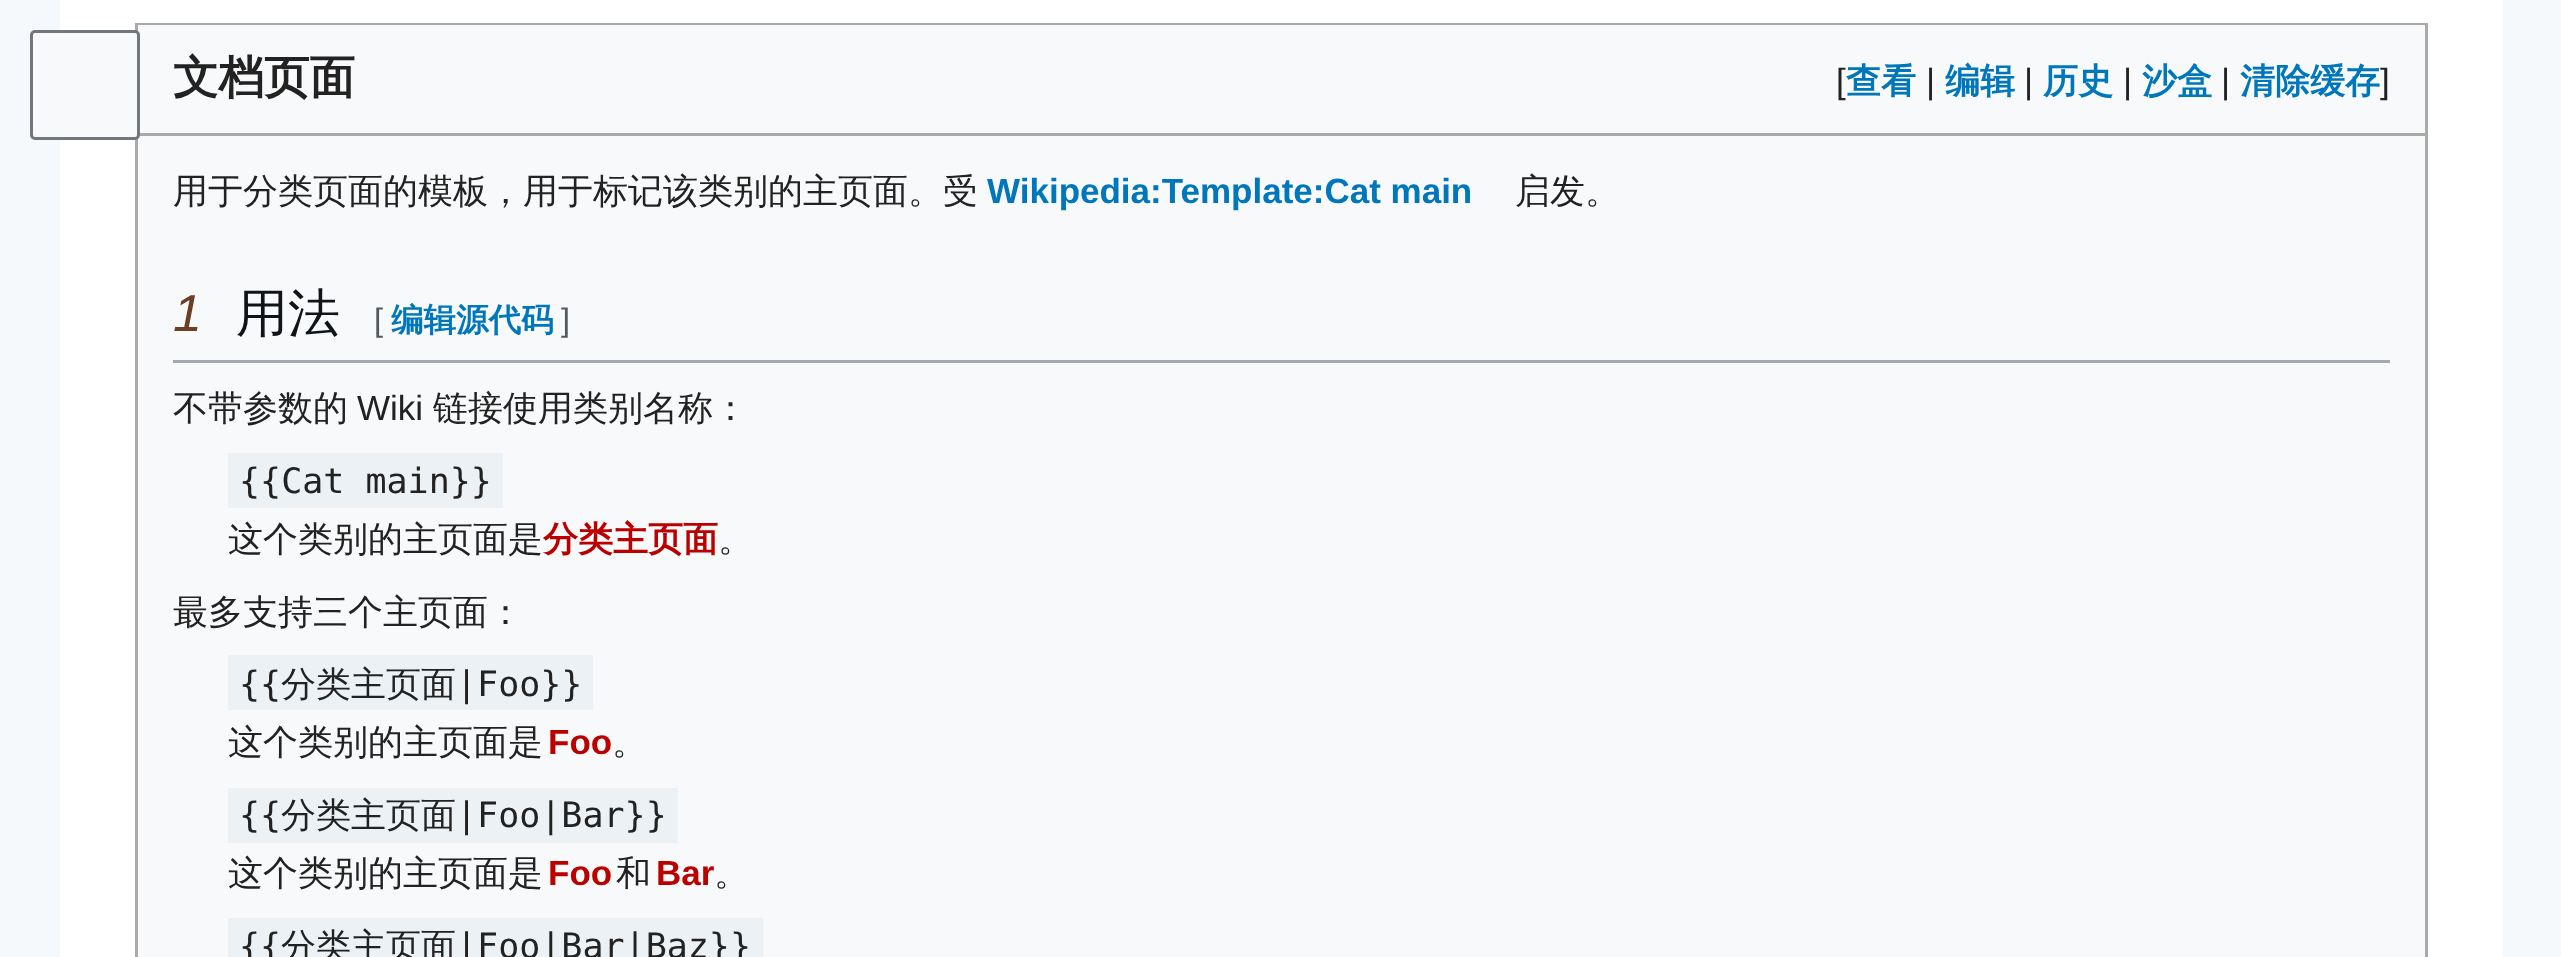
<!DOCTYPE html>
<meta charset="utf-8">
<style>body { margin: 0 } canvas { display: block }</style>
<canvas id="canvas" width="2561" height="957"></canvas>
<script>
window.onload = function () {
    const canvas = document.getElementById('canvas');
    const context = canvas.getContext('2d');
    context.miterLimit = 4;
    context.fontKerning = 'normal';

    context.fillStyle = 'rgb(246, 249, 252)';
    context.fillRect(0, 0, 2561, 957);
    context.fillStyle = 'rgb(255, 255, 255)';
    context.fillRect(60, 0, 2443, 957);
    context.fillStyle = 'rgb(248, 249, 250)';
    context.fillRect(138, 136, 2287, 821);
    context.strokeStyle = 'rgb(170, 170, 170)';
    context.lineWidth = 3;
    context.strokeRect(136.5, 24.5, 2290, 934);
    context.fillRect(138, 25, 2287, 108);
    context.fillStyle = 'rgb(170, 170, 170)';
    context.fillRect(138, 133, 2287, 3);
    context.fillStyle = 'rgb(248, 249, 250)';
    context.beginPath();
    context.roundRect(31.5, 31.5, 107, 107, 3.5);
    context.fill();
    context.strokeStyle = 'rgb(114, 119, 125)';
    context.stroke();
    context.fillStyle = 'rgb(162, 169, 177)';
    context.fillRect(173, 360, 2217, 3);
    context.fillStyle = 'rgb(235, 241, 245)';
    context.fillRect(228, 453, 275, 55);
    context.fillRect(228, 655, 365, 55);
    context.fillRect(228, 788, 450, 55);
    context.fillRect(228, 918, 535, 39);
    context.font = 'bold 45.5px WenQuanYi Zen Hei';
    context.fillStyle = 'rgb(34, 34, 34)';
    context.fillText('文档页面', 173, 93);
    context.font = '35px Liberation Sans';
    context.fillText('[', 1836, 93);
    context.font = 'bold 35px WenQuanYi Zen Hei';
    context.fillStyle = 'rgb(0, 119, 187)';
    context.fillText('查看', 1846, 93);
    context.font = '35px Liberation Sans';
    context.fillStyle = 'rgb(34, 34, 34)';
    context.fillText('|', 1926, 93);
    context.font = 'bold 35px WenQuanYi Zen Hei';
    context.fillStyle = 'rgb(0, 119, 187)';
    context.fillText('编辑', 1945, 93);
    context.font = '35px Liberation Sans';
    context.fillStyle = 'rgb(34, 34, 34)';
    context.fillText('|', 2024, 93);
    context.font = 'bold 35px WenQuanYi Zen Hei';
    context.fillStyle = 'rgb(0, 119, 187)';
    context.fillText('历史', 2043, 93);
    context.font = '35px Liberation Sans';
    context.fillStyle = 'rgb(34, 34, 34)';
    context.fillText('|', 2123, 93);
    context.font = 'bold 35px WenQuanYi Zen Hei';
    context.fillStyle = 'rgb(0, 119, 187)';
    context.fillText('沙盒', 2142, 93);
    context.font = '35px Liberation Sans';
    context.fillStyle = 'rgb(34, 34, 34)';
    context.fillText('|', 2221, 93);
    context.font = 'bold 35px WenQuanYi Zen Hei';
    context.fillStyle = 'rgb(0, 119, 187)';
    context.fillText('清除缓存', 2240, 93);
    context.font = '35px Liberation Sans';
    context.fillStyle = 'rgb(34, 34, 34)';
    context.fillText(']', 2380, 93);
    context.font = '500 35px WenQuanYi Zen Hei';
    context.fillText('用于分类页面的模板，用于标记该类别的主页面。受', 173, 203);
    context.font = 'bold 35px Liberation Sans';
    context.fillStyle = 'rgb(0, 119, 187)';
    context.fillText('Wikipedia:Template:Cat main', 987, 203);
    context.font = '500 35px WenQuanYi Zen Hei';
    context.fillStyle = 'rgb(34, 34, 34)';
    context.fillText('启发。', 1515, 203);
    context.font = 'italic 52px Liberation Sans';
    context.fillStyle = 'rgb(107, 62, 38)';
    context.fillText('1', 173, 331);
    context.font = '500 52px WenQuanYi Zen Hei';
    context.fillStyle = 'rgb(16, 20, 24)';
    context.fillText('用法', 236, 331);
    context.font = '32.5px Liberation Sans';
    context.fillStyle = 'rgb(84, 89, 93)';
    context.fillText('[', 374, 331);
    context.font = 'bold 32.5px WenQuanYi Zen Hei';
    context.fillStyle = 'rgb(0, 119, 187)';
    context.fillText('编辑源代码', 391, 331);
    context.font = '32.5px Liberation Sans';
    context.fillStyle = 'rgb(84, 89, 93)';
    context.fillText(']', 561, 331);
    context.font = '500 35px WenQuanYi Zen Hei';
    context.fillStyle = 'rgb(34, 34, 34)';
    context.fillText('不带参数的', 173, 420);
    context.font = '35px Liberation Sans';
    context.fillText('Wiki', 357, 420);
    context.font = '500 35px WenQuanYi Zen Hei';
    context.fillText('链接使用类别名称：', 433, 420);
    context.font = '35px DejaVu Sans Mono';
    context.fillText('{{Cat main}}', 239, 493);
    context.font = '500 35px WenQuanYi Zen Hei';
    context.fillText('这个类别的主页面是', 228, 551);
    context.font = 'bold 35px WenQuanYi Zen Hei';
    context.fillStyle = 'rgb(187, 0, 0)';
    context.fillText('分类主页面', 543, 551);
    context.font = '500 35px WenQuanYi Zen Hei';
    context.fillStyle = 'rgb(34, 34, 34)';
    context.fillText('。', 718, 551);
    context.fillText('最多支持三个主页面：', 173, 624);
    context.font = '35px DejaVu Sans Mono';
    context.fillText('{{', 239, 696);
    context.font = '500 35px WenQuanYi Zen Hei';
    context.fillText('分类主页面', 281, 696);
    context.font = '35px DejaVu Sans Mono';
    context.fillText('|Foo}}', 456, 696);
    context.font = '500 35px WenQuanYi Zen Hei';
    context.fillText('这个类别的主页面是', 228, 754);
    context.font = 'bold 35px Liberation Sans';
    context.fillStyle = 'rgb(187, 0, 0)';
    context.fillText('Foo', 548, 754);
    context.font = '500 35px WenQuanYi Zen Hei';
    context.fillStyle = 'rgb(34, 34, 34)';
    context.fillText('。', 612, 754);
    context.font = '35px DejaVu Sans Mono';
    context.fillText('{{', 239, 827);
    context.font = '500 35px WenQuanYi Zen Hei';
    context.fillText('分类主页面', 281, 827);
    context.font = '35px DejaVu Sans Mono';
    context.fillText('|Foo|Bar}}', 456, 827);
    context.font = '500 35px WenQuanYi Zen Hei';
    context.fillText('这个类别的主页面是', 228, 885);
    context.font = 'bold 35px Liberation Sans';
    context.fillStyle = 'rgb(187, 0, 0)';
    context.fillText('Foo', 548, 885);
    context.font = '500 35px WenQuanYi Zen Hei';
    context.fillStyle = 'rgb(34, 34, 34)';
    context.fillText('和', 616, 885);
    context.font = 'bold 35px Liberation Sans';
    context.fillStyle = 'rgb(187, 0, 0)';
    context.fillText('Bar', 656, 885);
    context.font = '500 35px WenQuanYi Zen Hei';
    context.fillStyle = 'rgb(34, 34, 34)';
    context.fillText('。', 714, 885);
    context.font = '35px DejaVu Sans Mono';
    context.fillText('{{', 239, 958);
    context.font = '500 35px WenQuanYi Zen Hei';
    context.fillText('分类主页面', 281, 958);
    context.font = '35px DejaVu Sans Mono';
    context.fillText('|Foo|Bar|Baz}}', 456, 958);
};
</script>
